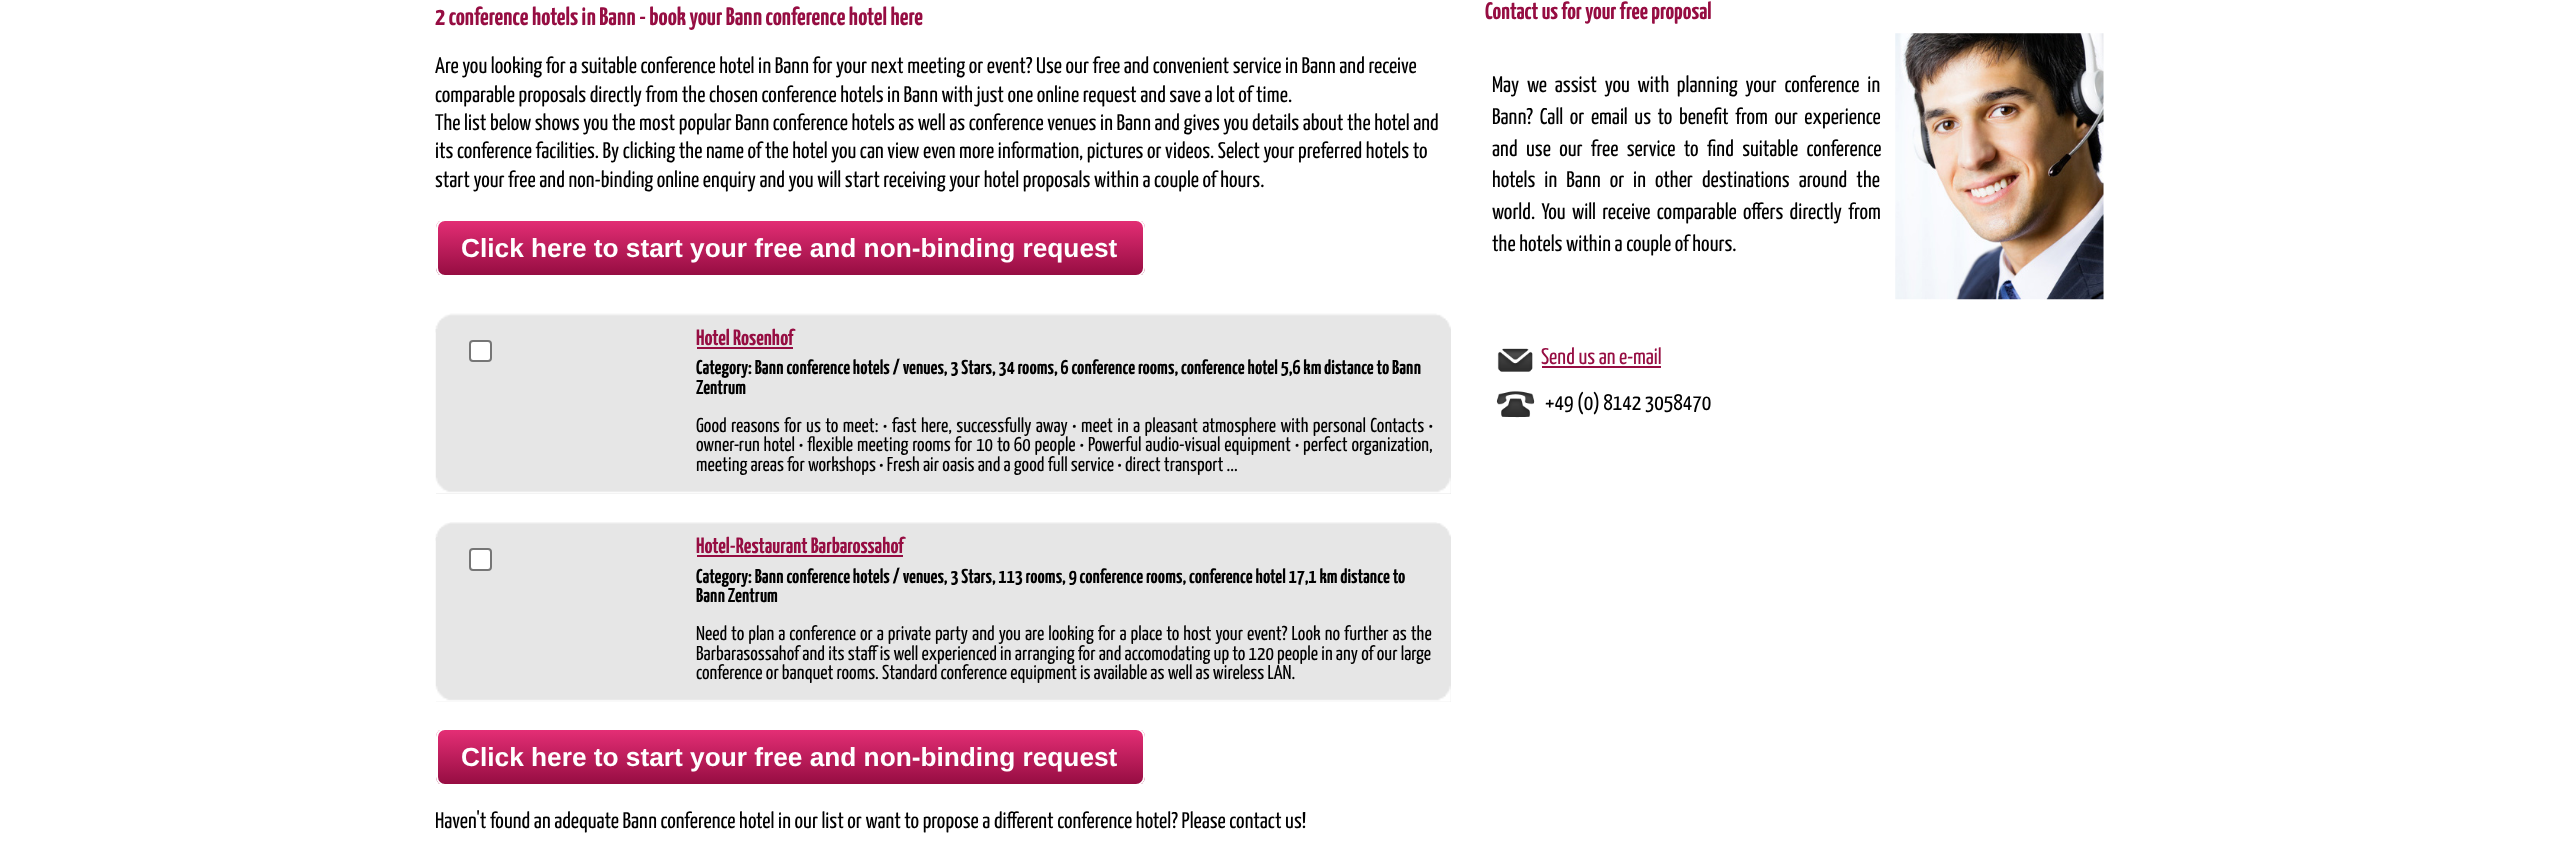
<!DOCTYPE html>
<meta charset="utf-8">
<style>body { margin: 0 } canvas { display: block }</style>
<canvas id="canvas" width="2567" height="859"></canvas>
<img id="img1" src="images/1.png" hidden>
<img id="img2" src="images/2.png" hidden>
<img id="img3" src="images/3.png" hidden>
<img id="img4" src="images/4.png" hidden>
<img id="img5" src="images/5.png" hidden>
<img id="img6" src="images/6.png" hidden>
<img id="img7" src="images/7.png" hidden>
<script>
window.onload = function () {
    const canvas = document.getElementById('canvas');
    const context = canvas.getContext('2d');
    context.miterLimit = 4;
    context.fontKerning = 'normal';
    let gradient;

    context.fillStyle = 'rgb(255, 255, 255)';
    context.fillRect(0, 0, 2567, 859);
    context.save();
    context.beginPath();
    context.roundRect(436, 219, 709, 58, 9);
    context.clip();
    gradient = context.createLinearGradient(790, 220, 790, 275);
    gradient.addColorStop(0, 'rgb(228, 46, 117)');
    gradient.addColorStop(1, 'rgb(150, 13, 66)');
    context.fillStyle = gradient;
    context.fillRect(436, 221, 709, 54);
    context.restore();
    context.beginPath();
    context.roundRect(437, 220, 707, 56, 8);
    context.strokeStyle = 'rgb(255, 255, 255)';
    context.lineWidth = 2;
    context.stroke();
    context.drawImage(document.getElementById('img1'), 435, 313, 1016, 20);
    context.fillStyle = 'rgb(230, 230, 230)';
    context.fillRect(436, 329, 1015, 165);
    context.drawImage(document.getElementById('img2'), 435, 329, 1016, 165);
    context.fillStyle = 'rgb(255, 255, 255)';
    context.beginPath();
    context.roundRect(470, 341, 21, 20, 3);
    context.fill();
    context.strokeStyle = 'rgb(118, 118, 118)';
    context.stroke();
    context.fillStyle = 'rgb(150, 13, 66)';
    context.fillRect(697, 347, 96, 2);
    context.drawImage(document.getElementById('img3'), 435, 522, 1016, 19);
    context.fillStyle = 'rgb(230, 230, 230)';
    context.fillRect(436, 537, 1015, 165);
    context.drawImage(document.getElementById('img4'), 435, 538, 1016, 164);
    context.fillStyle = 'rgb(255, 255, 255)';
    context.beginPath();
    context.roundRect(470, 549, 21, 21, 3);
    context.fill();
    context.stroke();
    context.fillStyle = 'rgb(150, 13, 66)';
    context.fillRect(697, 555, 206, 2);
    context.save();
    context.beginPath();
    context.roundRect(436, 728, 709, 58, 9);
    context.clip();
    gradient = context.createLinearGradient(790, 730, 790, 784);
    gradient.addColorStop(0, 'rgb(228, 46, 117)');
    gradient.addColorStop(1, 'rgb(150, 13, 66)');
    context.fillStyle = gradient;
    context.fillRect(436, 730, 709, 54);
    context.restore();
    context.beginPath();
    context.roundRect(437, 729, 707, 56, 8);
    context.strokeStyle = 'rgb(255, 255, 255)';
    context.stroke();
    context.drawImage(document.getElementById('img5'), 1895, 33, 209, 267);
    context.drawImage(document.getElementById('img6'), 1497, 348, 36, 24);
    context.fillRect(1542, 366, 119, 2);
    context.drawImage(document.getElementById('img7'), 1496, 391, 39, 27);
    context.font = 'bold 25.25px Yanone Kaffeesatz';
    context.fillText('2 conference hotels in Bann - book your Bann conference hotel here', 435, 25);
    context.font = '22.7px Yanone Kaffeesatz';
    context.fillStyle = 'rgb(0, 0, 0)';
    context.fillText('Are you looking for a suitable conference hotel in Bann for your next meeting or event? Use our free and convenient service in Bann and receive', 435, 73);
    context.fillText('comparable proposals directly from the chosen conference hotels in Bann with just one online request and save a lot of time.', 435, 102);
    context.fillText('The list below shows you the most popular Bann conference hotels as well as conference venues in Bann and gives you details about the hotel and', 435, 130);
    context.fillText('its conference facilities. By clicking the name of the hotel you can view even more information, pictures or videos. Select your preferred hotels to', 435, 158);
    context.fillText('start your free and non-binding online enquiry and you will start receiving your hotel proposals within a couple of hours.', 435, 187);
    context.font = 'bold 26.25px Liberation Sans';
    context.fillStyle = 'rgb(255, 255, 255)';
    context.fillText('Click here to start your free and non-binding request', 461, 257);
    context.font = 'bold 22.25px Yanone Kaffeesatz';
    context.fillStyle = 'rgb(150, 13, 66)';
    context.fillText('Hotel Rosenhof', 696, 345);
    context.font = 'bold 20.15px Yanone Kaffeesatz';
    context.fillStyle = 'rgb(0, 0, 0)';
    context.fillText('Category: Bann conference hotels / venues, 3 Stars, 34 rooms, 6 conference rooms, conference hotel 5,6 km distance to Bann', 696, 374);
    context.fillText('Zentrum', 696, 394);
    context.wordSpacing = '1.2px';
    context.font = '20.15px Yanone Kaffeesatz';
    context.fillText('Good reasons for us to meet: • fast here, successfully away • meet in a pleasant atmosphere with personal Contacts •', 696, 432);
    context.wordSpacing = '0.7px';
    context.fillText('owner-run hotel • flexible meeting rooms for 10 to 60 people • Powerful audio-visual equipment • perfect organization,', 696, 451);
    context.wordSpacing = '0px';
    context.fillText('meeting areas for workshops • Fresh air oasis and a good full service • direct transport ...', 696, 471);
    context.font = 'bold 22.25px Yanone Kaffeesatz';
    context.fillStyle = 'rgb(150, 13, 66)';
    context.fillText('Hotel-Restaurant Barbarossahof', 696, 553);
    context.font = 'bold 20.15px Yanone Kaffeesatz';
    context.fillStyle = 'rgb(0, 0, 0)';
    context.fillText('Category: Bann conference hotels / venues, 3 Stars, 113 rooms, 9 conference rooms, conference hotel 17,1 km distance to', 696, 583);
    context.fillText('Bann Zentrum', 696, 602);
    context.wordSpacing = '0.8px';
    context.font = '20.15px Yanone Kaffeesatz';
    context.fillText('Need to plan a conference or a private party and you are looking for a place to host your event? Look no further as the', 696, 640);
    context.wordSpacing = '0px';
    context.fillText('Barbarasossahof and its staff is well experienced in arranging for and accomodating up to 120 people in any of our large', 696, 660);
    context.fillText('conference or banquet rooms. Standard conference equipment is available as well as wireless LAN.', 696, 679);
    context.font = 'bold 26.25px Liberation Sans';
    context.fillStyle = 'rgb(255, 255, 255)';
    context.fillText('Click here to start your free and non-binding request', 461, 766);
    context.font = '22.7px Yanone Kaffeesatz';
    context.fillStyle = 'rgb(0, 0, 0)';
    context.fillText('Haven\'t found an adequate Bann conference hotel in our list or want to propose a different conference hotel? Please contact us!', 435, 828);
    context.font = 'bold 24px Yanone Kaffeesatz';
    context.fillStyle = 'rgb(150, 13, 66)';
    context.fillText('Contact us for your free proposal', 1485, 19);
    context.wordSpacing = '4.25px';
    context.font = '22.7px Yanone Kaffeesatz';
    context.fillStyle = 'rgb(0, 0, 0)';
    context.fillText('May we assist you with planning your conference in', 1492, 92);
    context.wordSpacing = '3px';
    context.fillText('Bann? Call or email us to benefit from our experience', 1492, 124);
    context.wordSpacing = '0px';
    context.fillText('and', 1492, 156);
    context.wordSpacing = '4.75px';
    context.fillText('use our free service to find suitable conference', 1526, 156);
    context.wordSpacing = '5.5px';
    context.fillText('hotels in Bann or', 1492, 187);
    context.fillText('in other destinations around the', 1633, 187);
    context.wordSpacing = '2.75px';
    context.fillText('world. You will receive comparable offers directly from', 1492, 219);
    context.wordSpacing = '0px';
    context.fillText('the hotels within a couple of hours.', 1492, 251);
    context.fillStyle = 'rgb(150, 13, 66)';
    context.fillText('Send us an e-mail', 1541, 364);
    context.fillStyle = 'rgb(0, 0, 0)';
    context.fillText('+49 (0) 8142 3058470', 1545, 410);
};
</script>
